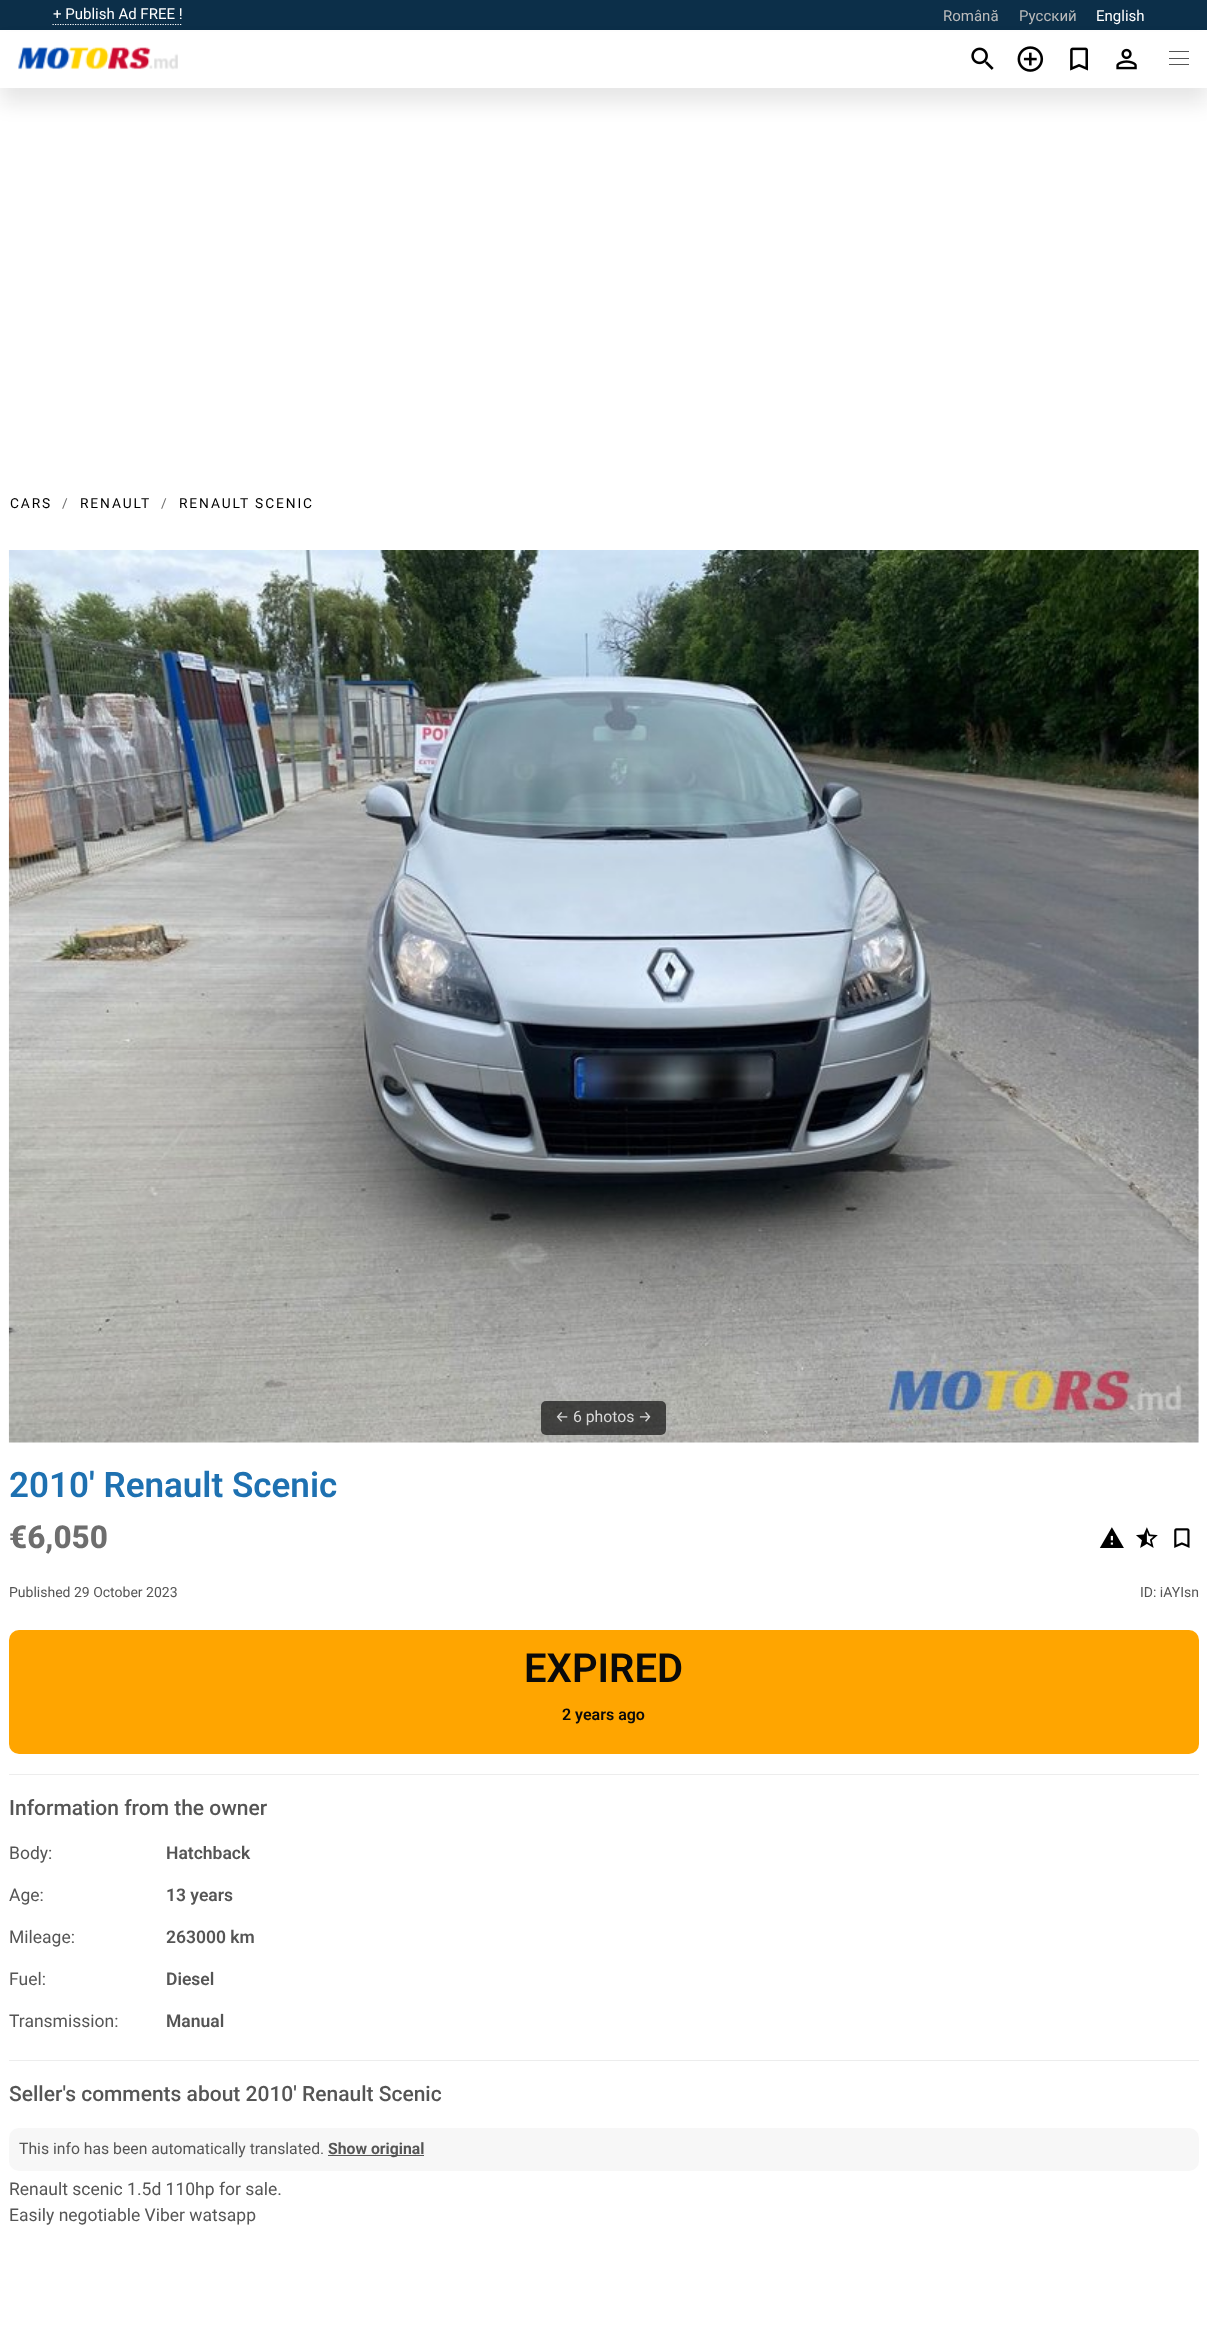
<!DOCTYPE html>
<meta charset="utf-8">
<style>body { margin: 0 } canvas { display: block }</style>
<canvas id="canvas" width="1207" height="2340"></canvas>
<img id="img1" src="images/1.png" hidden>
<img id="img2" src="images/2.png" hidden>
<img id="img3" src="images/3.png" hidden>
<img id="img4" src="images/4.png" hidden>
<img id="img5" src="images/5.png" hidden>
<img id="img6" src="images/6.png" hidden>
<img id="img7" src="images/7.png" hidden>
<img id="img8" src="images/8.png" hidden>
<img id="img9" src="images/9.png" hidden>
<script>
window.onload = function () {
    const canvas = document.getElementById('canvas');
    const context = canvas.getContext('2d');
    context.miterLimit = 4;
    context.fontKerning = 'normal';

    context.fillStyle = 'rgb(255, 255, 255)';
    context.fillRect(0, 0, 1207, 2340);
    context.fillStyle = 'rgb(12, 47, 73)';
    context.fillRect(0, 0, 1207, 30);
    context.beginPath();
    context.moveTo(52.5, 24.5);
    context.lineTo(182.5, 24.5);
    context.strokeStyle = 'rgb(255, 255, 255)';
    context.lineWidth = 1.2;
    context.setLineDash([1.25, 1.25]);
    context.stroke();
    context.fillStyle = 'rgba(10, 10, 10, 0.1)';
    context.filter = 'blur(10px)';
    context.beginPath();
    context.rect(0, 45, 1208, 58);
    context.fill();
    context.filter = 'none';
    context.fillStyle = 'rgb(255, 255, 255)';
    context.fillRect(0, 32, 1207, 56);
    context.drawImage(document.getElementById('img1'), 971, 47, 23, 23);
    context.drawImage(document.getElementById('img2'), 1017, 46, 27, 26);
    context.drawImage(document.getElementById('img3'), 1070, 47, 18, 24);
    context.drawImage(document.getElementById('img4'), 1116, 48, 21, 22);
    context.drawImage(document.getElementById('img5'), 18, 47, 160, 23);
    context.fillStyle = 'rgb(85, 85, 85)';
    context.fillRect(1169, 51, 20, 1);
    context.fillRect(1169, 58, 20, 1);
    context.fillRect(1169, 64, 20, 1);
    context.drawImage(document.getElementById('img6'), 8, 550, 1191, 893);
    context.fillStyle = 'rgba(0, 0, 0, 0.64)';
    context.beginPath();
    context.roundRect(541, 1401, 125, 34, 5);
    context.fill();
    context.drawImage(document.getElementById('img7'), 1099, 1527, 25, 21);
    context.drawImage(document.getElementById('img8'), 1136, 1527, 22, 21);
    context.drawImage(document.getElementById('img9'), 1174, 1528, 16, 20);
    context.fillStyle = 'rgb(255, 165, 0)';
    context.beginPath();
    context.roundRect(9, 1630, 1190, 124, 10);
    context.fill();
    context.fillStyle = 'rgb(237, 237, 237)';
    context.fillRect(9, 1774, 1190, 1);
    context.fillRect(9, 2060, 1190, 1);
    context.fillStyle = 'rgb(247, 247, 247)';
    context.beginPath();
    context.roundRect(9, 2128, 1190, 43, 10);
    context.fill();
    context.fillStyle = 'rgb(85, 85, 85)';
    context.fillRect(328, 2155, 96, 1);
    context.font = '15px Roboto';
    context.fillStyle = 'rgb(255, 255, 255)';
    context.fillText('+ Publish Ad FREE !', 53, 19);
    context.fillStyle = 'rgb(187, 187, 187)';
    context.fillText('Română', 943, 21);
    context.fillText('Русский', 1019, 21);
    context.fillStyle = 'rgb(255, 255, 255)';
    context.fillText('English', 1096, 21);
    context.letterSpacing = '1.9px';
    context.font = '13.75px Roboto';
    context.fillStyle = 'rgb(0, 0, 0)';
    context.fillText('CARS', 10, 508);
    context.fillStyle = 'rgb(110, 110, 110)';
    context.fillText('/', 62, 508);
    context.fillStyle = 'rgb(0, 0, 0)';
    context.fillText('RENAULT', 80, 508);
    context.fillStyle = 'rgb(110, 110, 110)';
    context.fillText('/', 161, 508);
    context.fillStyle = 'rgb(0, 0, 0)';
    context.fillText('RENAULT SCENIC', 179, 508);
    context.letterSpacing = '0px';
    context.font = '15.75px Fira Sans';
    context.fillStyle = 'rgb(217, 217, 217)';
    context.fillText('←', 555, 1422);
    context.font = '15.75px Roboto';
    context.fillText('6 photos', 573, 1422);
    context.font = '15.75px Fira Sans';
    context.fillText('→', 638, 1422);
    context.font = '600 35px Roboto';
    context.fillStyle = 'rgb(30, 113, 177)';
    context.fillText('2010\' Renault Scenic', 9, 1497);
    context.font = '800 31.5px Roboto';
    context.fillStyle = 'rgb(110, 110, 110)';
    context.fillText('€6,050', 9, 1548);
    context.font = '14px Roboto';
    context.fillStyle = 'rgb(85, 85, 85)';
    context.fillText('Published 29 October 2023', 9, 1597);
    context.fillText('ID: iAYIsn', 1140, 1597);
    context.font = '600 40px Roboto';
    context.fillStyle = 'rgb(10, 10, 10)';
    context.fillText('EXPIRED', 524, 1682);
    context.font = '600 16px Roboto';
    context.fillText('2 years ago', 562, 1720);
    context.font = '500 21px Roboto';
    context.fillStyle = 'rgb(85, 85, 85)';
    context.fillText('Information from the owner', 9, 1815);
    context.font = '17.5px Roboto';
    context.fillText('Body:', 9, 1859);
    context.font = '600 17.5px Roboto';
    context.fillText('Hatchback', 166, 1859);
    context.font = '17.5px Roboto';
    context.fillText('Age:', 9, 1901);
    context.font = '600 17.5px Roboto';
    context.fillText('13 years', 166, 1901);
    context.font = '17.5px Roboto';
    context.fillText('Mileage:', 9, 1943);
    context.font = '600 17.5px Roboto';
    context.fillText('263000 km', 166, 1943);
    context.font = '17.5px Roboto';
    context.fillText('Fuel:', 9, 1985);
    context.font = '600 17.5px Roboto';
    context.fillText('Diesel', 166, 1985);
    context.font = '17.5px Roboto';
    context.fillText('Transmission:', 9, 2027);
    context.font = '600 17.5px Roboto';
    context.fillText('Manual', 166, 2027);
    context.font = '500 21px Roboto';
    context.fillText('Seller\'s comments about 2010\' Renault Scenic', 9, 2101);
    context.font = '15.75px Roboto';
    context.fillText('This info has been automatically translated.', 19, 2154);
    context.font = 'bold 15.75px Roboto';
    context.fillText('Show original', 328, 2154);
    context.font = '17.5px Roboto';
    context.fillText('Renault scenic 1.5d 110hp for sale.', 9, 2195);
    context.fillText('Easily negotiable Viber watsapp', 9, 2221);
};
</script>
